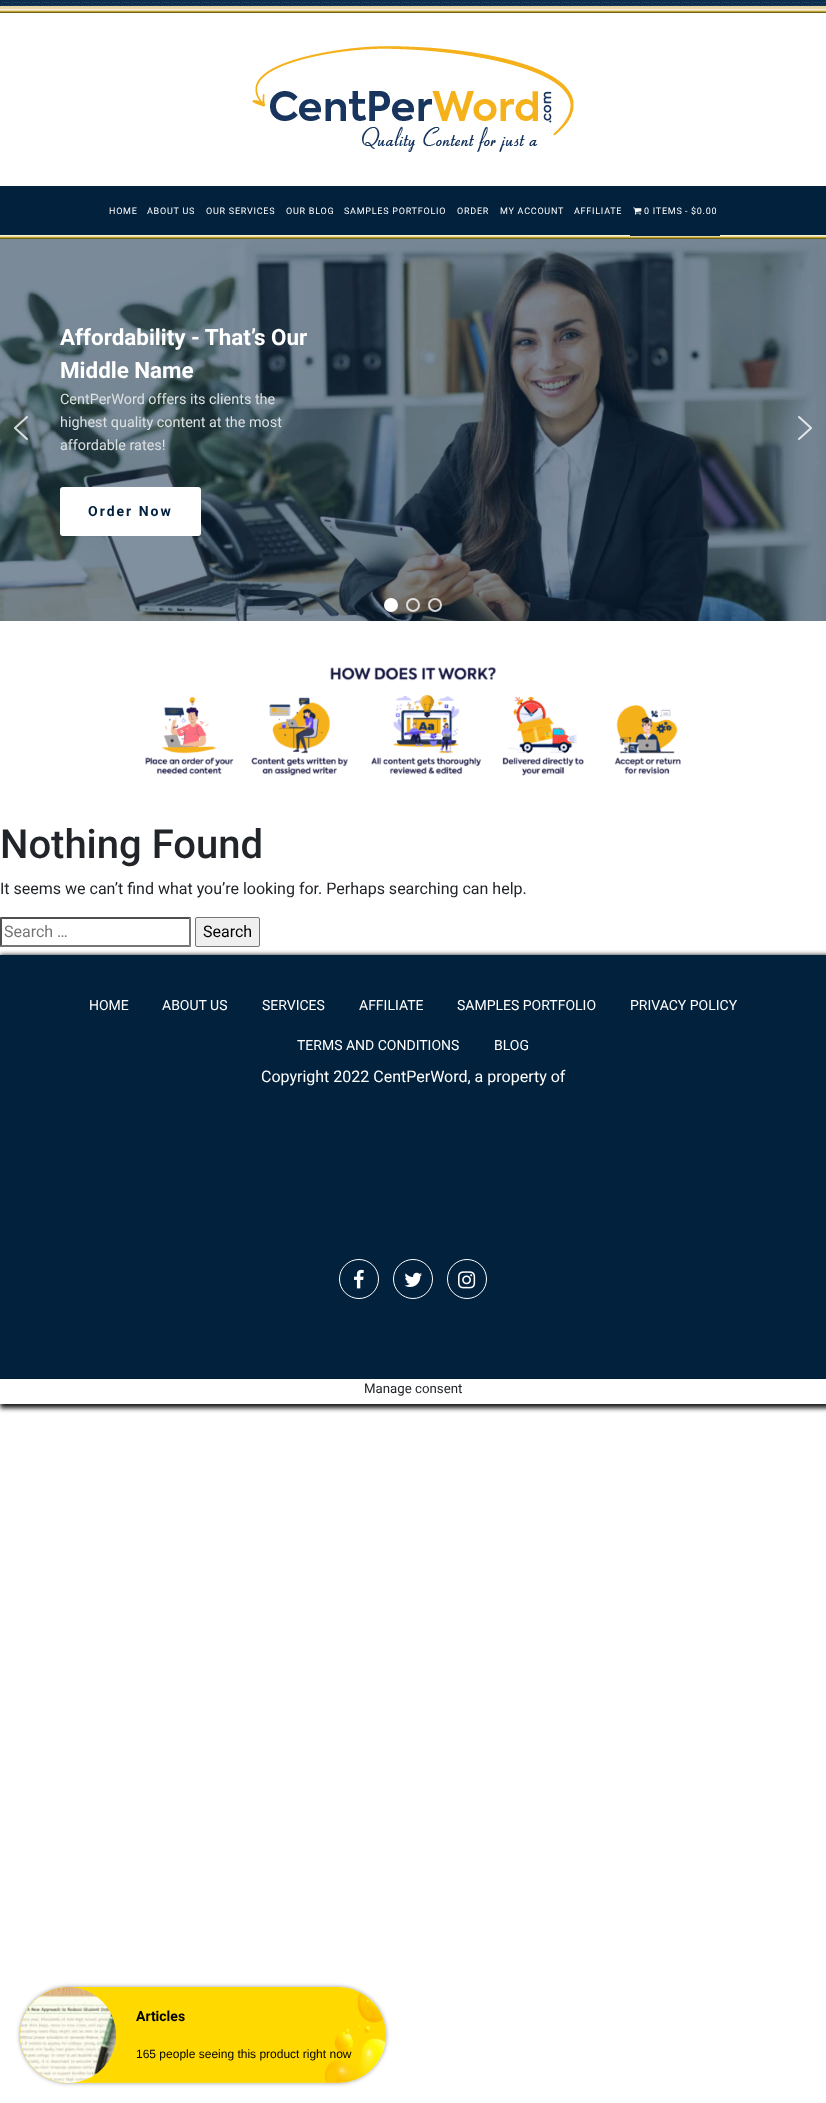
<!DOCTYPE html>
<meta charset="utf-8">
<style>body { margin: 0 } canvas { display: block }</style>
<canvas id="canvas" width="826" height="2103"></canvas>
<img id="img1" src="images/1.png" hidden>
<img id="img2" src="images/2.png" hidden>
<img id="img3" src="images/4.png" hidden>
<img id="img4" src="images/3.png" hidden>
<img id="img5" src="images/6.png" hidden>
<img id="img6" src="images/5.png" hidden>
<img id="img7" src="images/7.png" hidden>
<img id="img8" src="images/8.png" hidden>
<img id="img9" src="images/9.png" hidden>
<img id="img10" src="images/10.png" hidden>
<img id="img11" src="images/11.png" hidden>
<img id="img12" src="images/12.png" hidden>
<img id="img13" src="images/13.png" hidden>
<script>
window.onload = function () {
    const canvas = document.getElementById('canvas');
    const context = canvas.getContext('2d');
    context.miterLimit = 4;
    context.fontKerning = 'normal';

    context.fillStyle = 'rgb(255, 255, 255)';
    context.fillRect(0, 0, 826, 2103);
    context.drawImage(document.getElementById('img1'), 0, 0, 826, 13);
    context.drawImage(document.getElementById('img2'), 252, 46, 322, 109);
    context.fillStyle = 'rgb(2, 33, 61)';
    context.fillRect(0, 186, 826, 49);
    context.drawImage(document.getElementById('img3'), 0, 235, 826, 4);
    context.fillRect(630, 235, 90, 1);
    context.drawImage(document.getElementById('img4'), 633, 207, 9, 8);
    context.fillRect(0, 239, 826, 382);
    context.drawImage(document.getElementById('img5'), 0, 239, 826, 382);
    context.drawImage(document.getElementById('img6'), 14, 416, 14, 24);
    context.fillStyle = 'rgb(255, 255, 255)';
    context.beginPath();
    context.roundRect(60, 487, 141, 49, 3);
    context.fill();
    context.drawImage(document.getElementById('img7'), 798, 416, 14, 24);
    context.beginPath();
    context.arc(391, 605, 6, 0, 2 * Math.PI);
    context.fill();
    context.strokeStyle = 'rgb(255, 255, 255)';
    context.lineWidth = 2;
    context.stroke();
    context.beginPath();
    context.arc(413, 605, 6, 0, 2 * Math.PI);
    context.strokeStyle = 'rgba(255, 255, 255, 0.8)';
    context.stroke();
    context.beginPath();
    context.arc(435, 605, 6, 0, 2 * Math.PI);
    context.stroke();
    context.drawImage(document.getElementById('img8'), 145, 667, 536, 109);
    context.fillStyle = 'rgb(79, 79, 79)';
    context.beginPath();
    context.moveTo(0, 917);
    context.lineTo(191, 917);
    context.lineTo(189, 919);
    context.lineTo(2, 919);
    context.closePath();
    context.fill();
    context.save();
    context.beginPath();
    context.moveTo(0, 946);
    context.lineTo(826, 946);
    context.lineTo(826, 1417);
    context.lineTo(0, 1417);
    context.closePath();
    context.moveTo(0, 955);
    context.lineTo(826, 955);
    context.lineTo(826, 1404);
    context.lineTo(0, 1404);
    context.closePath();
    context.clip('evenodd');
    context.fillStyle = 'rgb(22, 22, 22)';
    context.filter = 'blur(2.5px)';
    context.beginPath();
    context.rect(0, 955, 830, 453);
    context.fill();
    context.filter = 'none';
    context.restore();
    context.fillStyle = 'rgb(118, 118, 118)';
    context.beginPath();
    context.moveTo(191, 917);
    context.lineTo(191, 947);
    context.lineTo(189, 945);
    context.lineTo(189, 919);
    context.closePath();
    context.fill();
    context.beginPath();
    context.moveTo(191, 947);
    context.lineTo(0, 947);
    context.lineTo(2, 945);
    context.lineTo(189, 945);
    context.closePath();
    context.fill();
    context.fillStyle = 'rgb(79, 79, 79)';
    context.beginPath();
    context.moveTo(0, 947);
    context.lineTo(0, 917);
    context.lineTo(2, 919);
    context.lineTo(2, 945);
    context.closePath();
    context.fill();
    context.fillStyle = 'rgb(239, 239, 239)';
    context.beginPath();
    context.roundRect(195.5, 917.5, 64, 29, 1.5);
    context.fill();
    context.strokeStyle = 'rgb(118, 118, 118)';
    context.lineWidth = 1;
    context.stroke();
    context.fillStyle = 'rgb(1, 33, 60)';
    context.fillRect(0, 955, 826, 424);
    context.beginPath();
    context.arc(359, 1279, 19.5, 0, 2 * Math.PI);
    context.strokeStyle = 'rgb(255, 255, 255)';
    context.stroke();
    context.drawImage(document.getElementById('img9'), 354, 1269, 10, 20);
    context.beginPath();
    context.arc(413, 1279, 19.5, 0, 2 * Math.PI);
    context.stroke();
    context.drawImage(document.getElementById('img10'), 404, 1272, 18, 15);
    context.beginPath();
    context.arc(467, 1279, 19.5, 0, 2 * Math.PI);
    context.stroke();
    context.drawImage(document.getElementById('img11'), 458, 1271, 18, 18);
    context.fillStyle = 'rgba(0, 0, 0, 0.4)';
    context.filter = 'blur(2px)';
    context.beginPath();
    context.roundRect(20, 1987, 366, 96, 48);
    context.fill();
    context.filter = 'none';
    context.fillStyle = 'rgb(255, 255, 255)';
    context.beginPath();
    context.roundRect(20, 1987, 366, 96, 48);
    context.fill();
    context.drawImage(document.getElementById('img12'), 20, 1987, 366, 96);
    context.drawImage(document.getElementById('img13'), 20, 1987, 96, 96);
    context.letterSpacing = '0.75px';
    context.font = '9px Roboto';
    context.fillText('HOME', 109, 214);
    context.fillText('ABOUT US', 147, 214);
    context.fillText('OUR SERVICES', 206, 214);
    context.fillText('OUR BLOG', 286, 214);
    context.fillText('SAMPLES PORTFOLIO', 344, 214);
    context.fillText('ORDER', 457, 214);
    context.fillText('MY ACCOUNT', 500, 214);
    context.fillText('AFFILIATE', 574, 214);
    context.fillText('0 ITEMS', 644, 214);
    context.fillText('-', 685, 214);
    context.fillText('$0.00', 691, 214);
    context.letterSpacing = '0px';
    context.font = 'bold 22.4px Roboto';
    context.fillText('Affordability - That’s Our', 60, 345);
    context.fillText('Middle Name', 60, 378);
    context.font = '14.4px Roboto';
    context.fillStyle = 'rgb(219, 224, 225)';
    context.fillText('CentPerWord offers its clients the', 60, 404);
    context.fillText('highest quality content at the most', 60, 427);
    context.fillText('affordable rates!', 60, 450);
    context.letterSpacing = '2px';
    context.font = 'bold 14px Roboto';
    context.fillStyle = 'rgb(2, 33, 61)';
    context.fillText('Order Now', 88, 516);
    context.letterSpacing = '0px';
    context.font = '500 40px Roboto';
    context.fillStyle = 'rgb(33, 37, 41)';
    context.fillText('Nothing Found', 0, 858);
    context.font = '16px Roboto';
    context.fillText('It seems we can’t find what you’re looking for. Perhaps searching can help.', 0, 894);
    context.fillStyle = 'rgb(117, 117, 117)';
    context.fillText('Search …', 4, 937);
    context.fillStyle = 'rgb(0, 0, 0)';
    context.fillText('Search', 203, 937);
    context.font = '14px Roboto';
    context.fillStyle = 'rgb(255, 255, 255)';
    context.fillText('HOME', 89, 1010);
    context.fillText('ABOUT US', 162, 1010);
    context.fillText('SERVICES', 262, 1010);
    context.fillText('AFFILIATE', 359, 1010);
    context.fillText('SAMPLES PORTFOLIO', 457, 1010);
    context.fillText('PRIVACY POLICY', 630, 1010);
    context.fillText('TERMS AND CONDITIONS', 297, 1050);
    context.fillText('BLOG', 494, 1050);
    context.font = '16px Roboto';
    context.fillText('Copyright 2022 CentPerWord, a property of', 261, 1082);
    context.font = '13.25px Roboto';
    context.fillStyle = 'rgb(33, 37, 41)';
    context.fillText('Manage consent', 364, 1393);
    context.font = 'bold 14px Roboto';
    context.fillStyle = 'rgb(0, 0, 0)';
    context.fillText('Articles', 136, 2021);
    context.font = '12px Liberation Sans';
    context.fillText('165 people seeing this product right now', 136, 2058);
};
</script>
